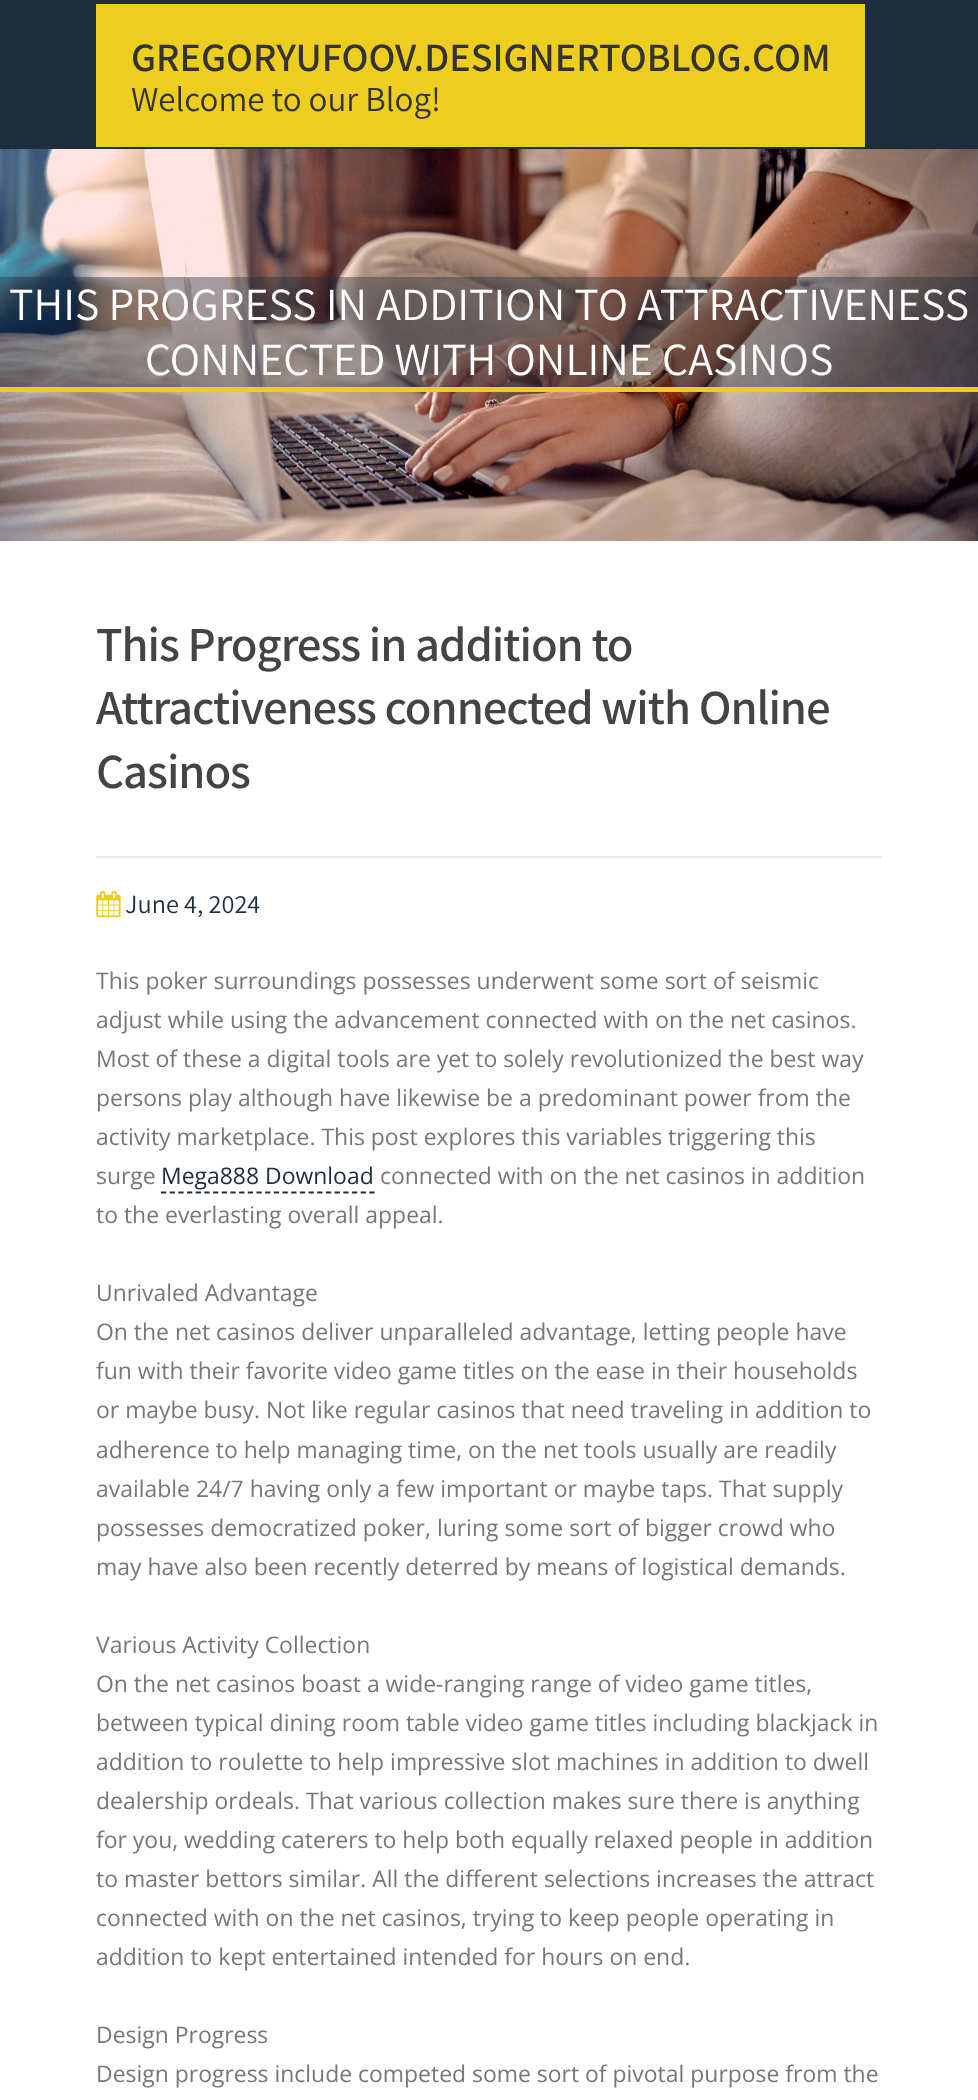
<!DOCTYPE html>
<meta charset="utf-8">
<style>body { margin: 0 } canvas { display: block }</style>
<canvas id="canvas" width="978" height="2100"></canvas>
<img id="img1" src="images/1.png" hidden>
<img id="img2" src="images/2.png" hidden>
<script>
window.onload = function () {
    const canvas = document.getElementById('canvas');
    const context = canvas.getContext('2d');
    context.miterLimit = 4;
    context.fontKerning = 'normal';

    context.fillStyle = 'rgb(255, 255, 255)';
    context.fillRect(0, 0, 978, 2100);
    context.fillStyle = 'rgb(30, 45, 59)';
    context.fillRect(0, 0, 978, 149);
    context.fillStyle = 'rgb(237, 205, 31)';
    context.fillRect(96, 4, 769, 143);
    context.drawImage(document.getElementById('img1'), 0, 149, 978, 392);
    context.fillStyle = 'rgba(30, 45, 59, 0.4)';
    context.fillRect(0, 277, 978, 110);
    context.fillStyle = 'rgb(237, 205, 31)';
    context.fillRect(0, 387, 978, 5);
    context.fillStyle = 'rgb(233, 233, 233)';
    context.fillRect(96, 856, 786, 2);
    context.drawImage(document.getElementById('img2'), 96, 891, 25, 27);
    context.beginPath();
    context.moveTo(161, 1192.5);
    context.lineTo(374.5, 1192.5);
    context.strokeStyle = 'rgb(30, 45, 59)';
    context.lineWidth = 1.8;
    context.setLineDash([5.25, 3.43]);
    context.stroke();
    context.font = '600 40.25px Assistant';
    context.fillStyle = 'rgb(51, 51, 51)';
    context.fillText('GREGORYUFOOV.DESIGNERTOBLOG.COM', 131, 71);
    context.font = '35px Assistant';
    context.fillText('Welcome to our Blog!', 131, 111);
    context.font = '45.9px Assistant';
    context.fillStyle = 'rgb(255, 255, 255)';
    context.fillText('THIS PROGRESS IN ADDITION TO ATTRACTIVENESS', 9, 320);
    context.fillText('CONNECTED WITH ONLINE CASINOS', 145, 375);
    context.letterSpacing = '-1.05px';
    context.font = '600 49px Assistant';
    context.fillStyle = 'rgb(68, 68, 68)';
    context.fillText('This Progress in addition to', 96, 661);
    context.fillText('Attractiveness connected with Online', 96, 724);
    context.fillText('Casinos', 96, 788);
    context.letterSpacing = '0px';
    context.font = '26.25px Assistant';
    context.fillStyle = 'rgb(30, 45, 59)';
    context.fillText('June 4, 2024', 125, 913);
    context.font = '22.95px Open Sans';
    context.fillStyle = 'rgb(119, 119, 119)';
    context.fillText('This poker surroundings possesses underwent some sort of seismic', 96, 989);
    context.fillText('adjust while using the advancement connected with on the net casinos.', 96, 1028);
    context.fillText('Most of these a digital tools are yet to solely revolutionized the best way', 96, 1067);
    context.fillText('persons play although have likewise be a predominant power from the', 96, 1106);
    context.fillText('activity marketplace. This post explores this variables triggering this', 96, 1145);
    context.fillText('surge', 96, 1184);
    context.fillStyle = 'rgb(30, 45, 59)';
    context.fillText('Mega888 Download', 161, 1184);
    context.fillStyle = 'rgb(119, 119, 119)';
    context.fillText('connected with on the net casinos in addition', 380, 1184);
    context.fillText('to the everlasting overall appeal.', 96, 1223);
    context.fillText('Unrivaled Advantage', 96, 1301);
    context.fillText('On the net casinos deliver unparalleled advantage, letting people have', 96, 1340);
    context.fillText('fun with their favorite video game titles on the ease in their households', 96, 1379);
    context.fillText('or maybe busy. Not like regular casinos that need traveling in addition to', 96, 1418);
    context.fillText('adherence to help managing time, on the net tools usually are readily', 96, 1458);
    context.fillText('available 24/7 having only a few important or maybe taps. That supply', 96, 1497);
    context.fillText('possesses democratized poker, luring some sort of bigger crowd who', 96, 1536);
    context.fillText('may have also been recently deterred by means of logistical demands.', 96, 1575);
    context.fillText('Various Activity Collection', 96, 1653);
    context.fillText('On the net casinos boast a wide-ranging range of video game titles,', 96, 1692);
    context.fillText('between typical dining room table video game titles including blackjack in', 96, 1731);
    context.fillText('addition to roulette to help impressive slot machines in addition to dwell', 96, 1770);
    context.fillText('dealership ordeals. That various collection makes sure there is anything', 96, 1809);
    context.fillText('for you, wedding caterers to help both equally relaxed people in addition', 96, 1848);
    context.fillText('to master bettors similar. All the different selections increases the attract', 96, 1887);
    context.fillText('connected with on the net casinos, trying to keep people operating in', 96, 1926);
    context.fillText('addition to kept entertained intended for hours on end.', 96, 1965);
    context.fillText('Design Progress', 96, 2043);
    context.fillText('Design progress include competed some sort of pivotal purpose from the', 96, 2082);
};
</script>
